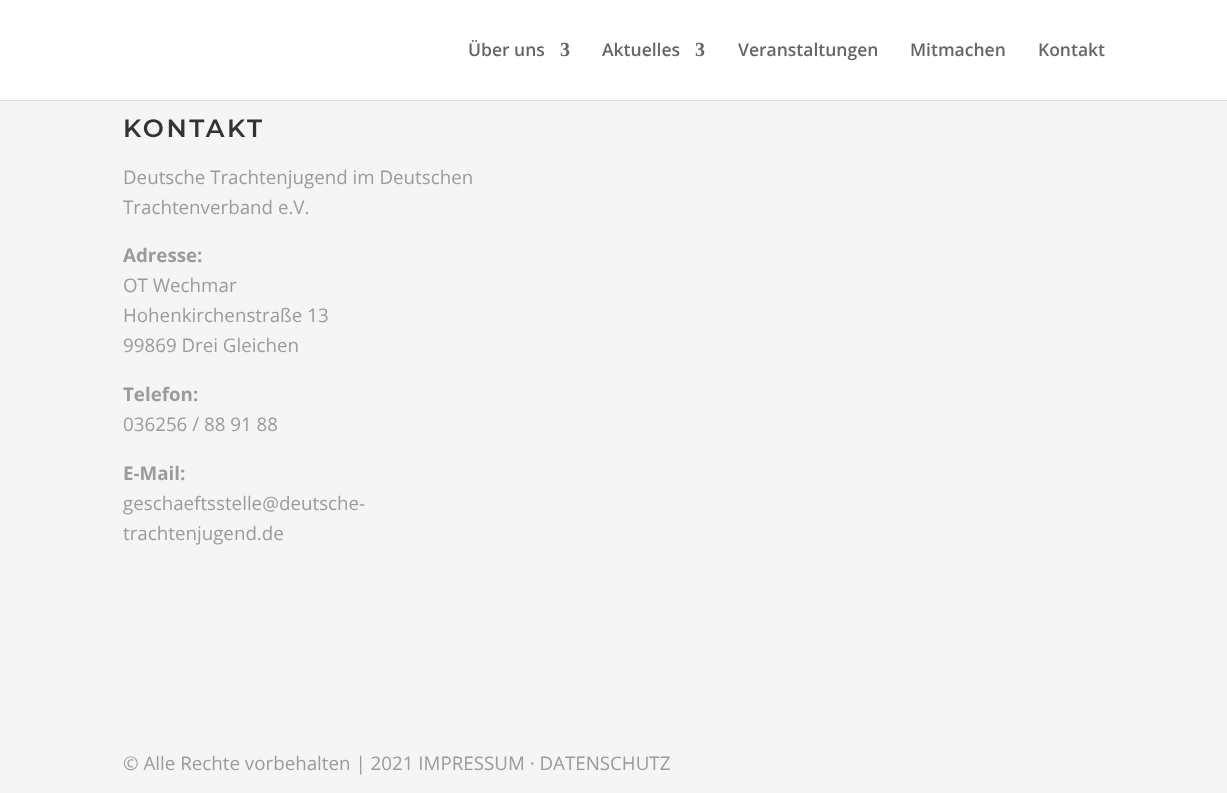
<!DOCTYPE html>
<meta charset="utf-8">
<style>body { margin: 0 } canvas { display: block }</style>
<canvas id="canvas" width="1227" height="793"></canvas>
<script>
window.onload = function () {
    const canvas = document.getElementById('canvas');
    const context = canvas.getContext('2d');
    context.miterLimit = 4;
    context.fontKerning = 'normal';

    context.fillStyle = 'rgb(245, 245, 245)';
    context.fillRect(0, 0, 1227, 793);
    context.fillStyle = 'rgb(221, 221, 221)';
    context.beginPath();
    context.moveTo(0, 100);
    context.lineTo(0, 101);
    context.lineTo(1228, 101);
    context.lineTo(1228, 1);
    context.lineTo(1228, 100);
    context.closePath();
    context.fill();
    context.fillStyle = 'rgb(255, 255, 255)';
    context.fillRect(0, 0, 1227, 100);
    context.font = '600 17.5px Open Sans';
    context.fillStyle = 'rgb(102, 102, 102)';
    context.fillText('Über uns', 468, 56);
    context.font = 'bold 20px Liberation Serif';
    context.fillText('3', 560, 56);
    context.font = '600 17.5px Open Sans';
    context.fillText('Aktuelles', 602, 56);
    context.font = 'bold 20px Liberation Serif';
    context.fillText('3', 695, 56);
    context.font = '600 17.5px Open Sans';
    context.fillText('Veranstaltungen', 738, 56);
    context.fillText('Mitmachen', 910, 56);
    context.fillText('Kontakt', 1038, 56);
    context.letterSpacing = '2.5px';
    context.font = '100 25px Montserrat';
    context.fillStyle = 'rgb(51, 51, 51)';
    context.fillText('KONTAKT', 123, 137);
    context.letterSpacing = '0px';
    context.font = '18.75px Open Sans';
    context.fillStyle = 'rgb(155, 155, 155)';
    context.fillText('Deutsche Trachtenjugend im Deutschen', 123, 184);
    context.fillText('Trachtenverband e.V.', 123, 214);
    context.font = 'bold 18.75px Open Sans';
    context.fillText('Adresse:', 123, 262);
    context.font = '18.75px Open Sans';
    context.fillText('OT Wechmar', 123, 292);
    context.fillText('Hohenkirchenstraße 13', 123, 322);
    context.fillText('99869 Drei Gleichen', 123, 352);
    context.font = 'bold 18.75px Open Sans';
    context.fillText('Telefon:', 123, 401);
    context.font = '18.75px Open Sans';
    context.fillText('036256 / 88 91 88', 123, 431);
    context.font = 'bold 18.75px Open Sans';
    context.fillText('E-Mail:', 123, 480);
    context.font = '18.75px Open Sans';
    context.fillText('geschaeftsstelle@deutsche-', 123, 510);
    context.fillText('trachtenjugend.de', 123, 540);
    context.fillText('© Alle Rechte vorbehalten | 2021 IMPRESSUM · DATENSCHUTZ', 123, 770);
};
</script>
